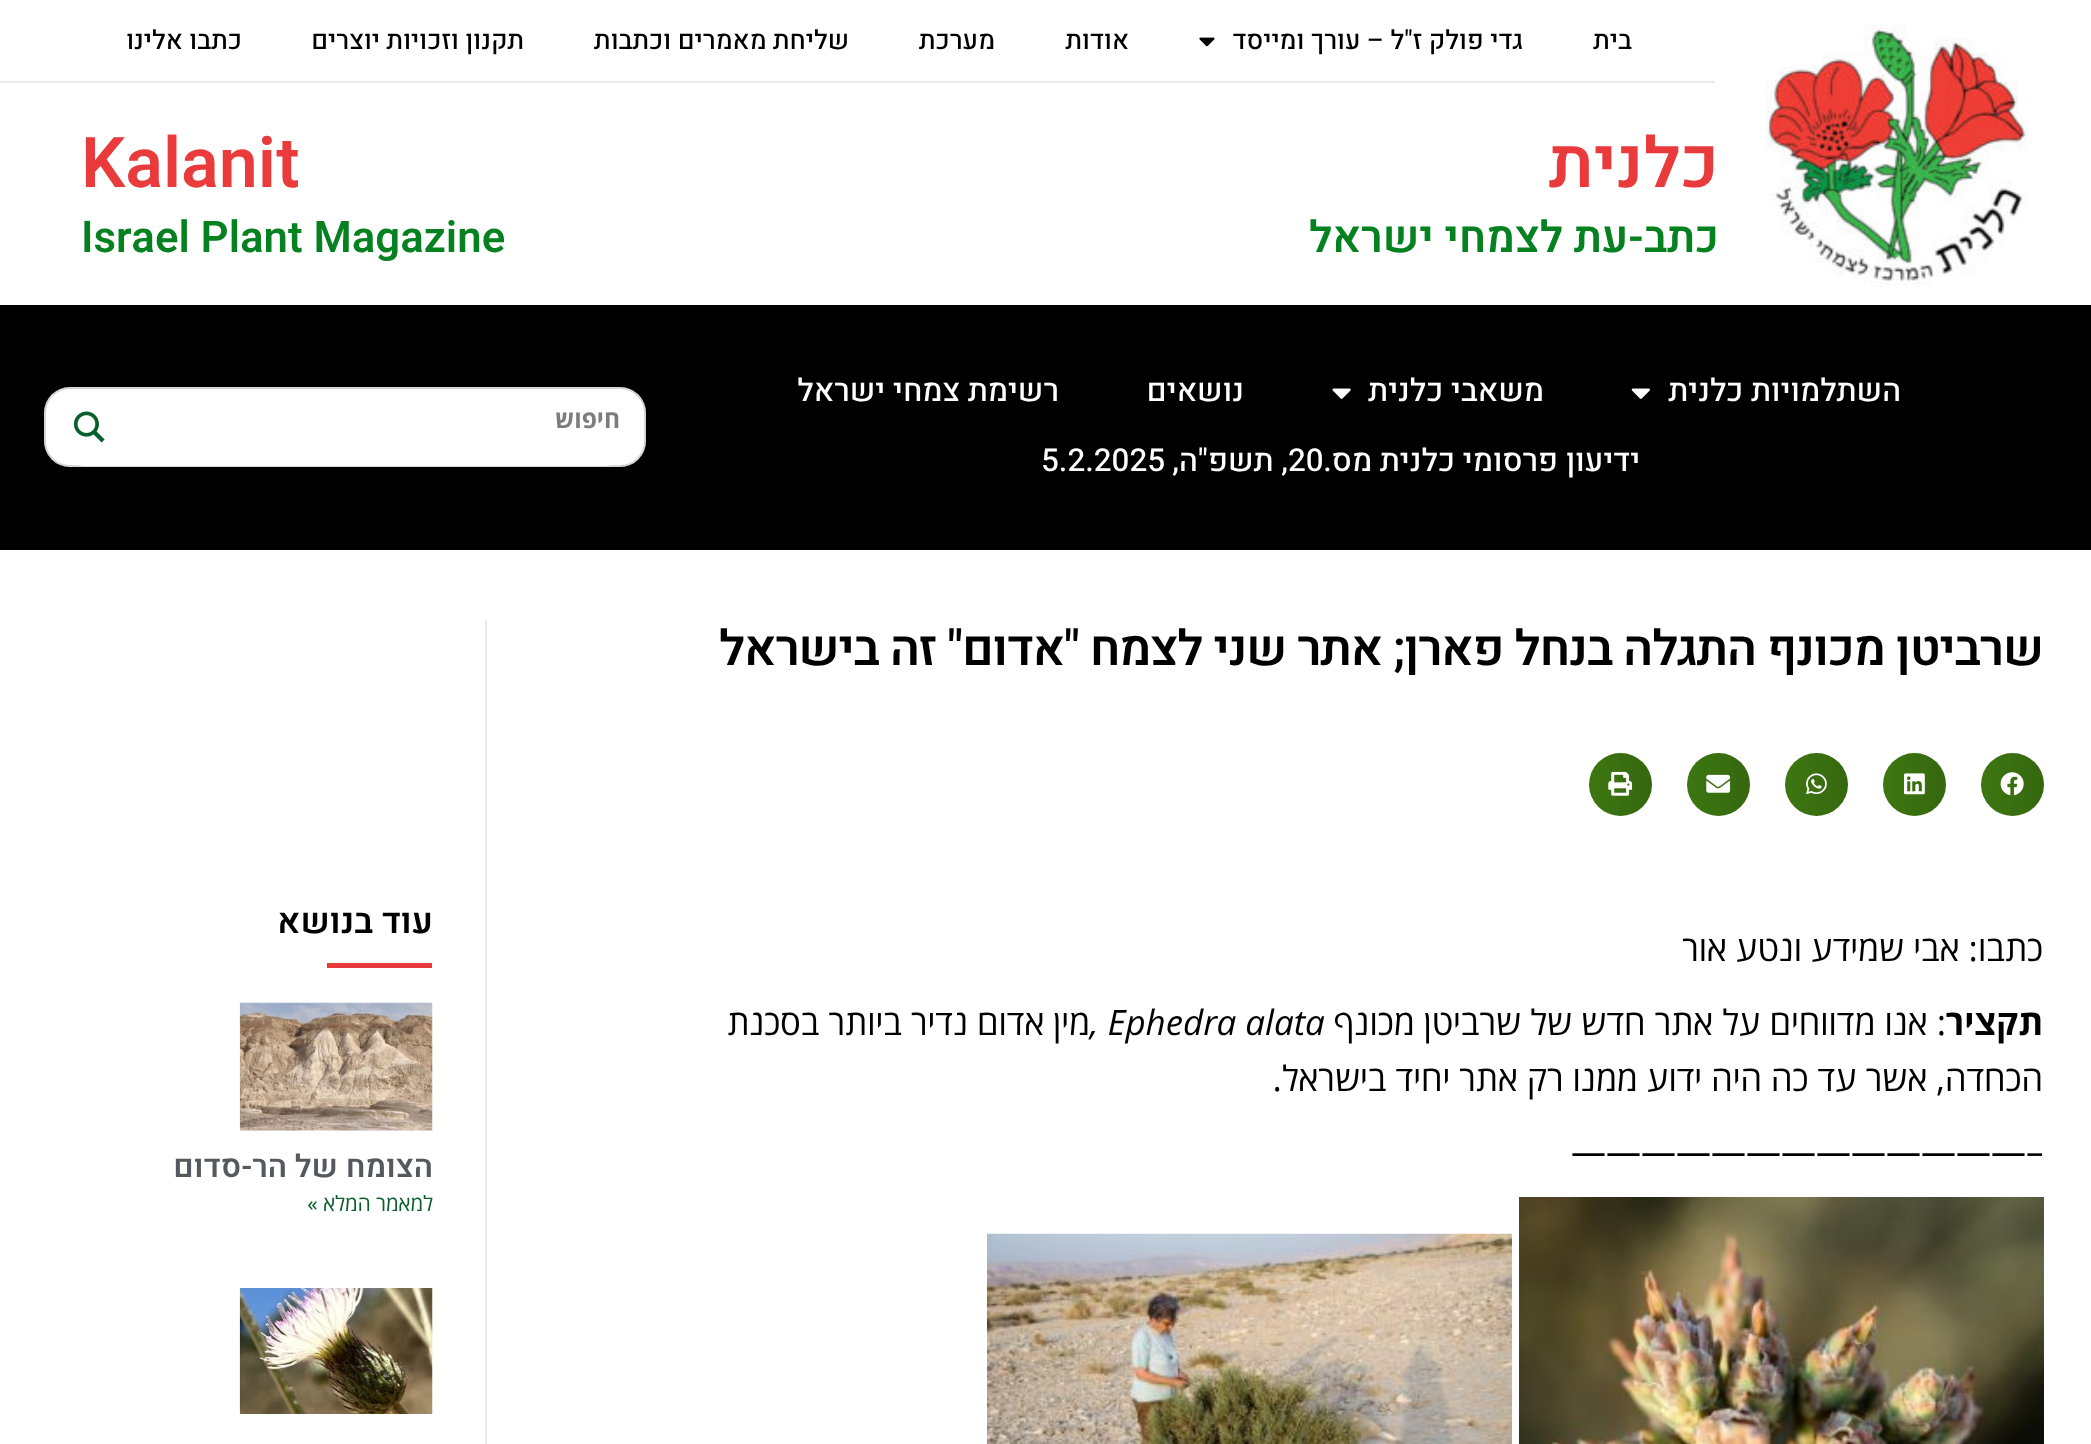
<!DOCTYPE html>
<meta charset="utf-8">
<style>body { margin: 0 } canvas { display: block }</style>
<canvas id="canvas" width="2091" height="1444"></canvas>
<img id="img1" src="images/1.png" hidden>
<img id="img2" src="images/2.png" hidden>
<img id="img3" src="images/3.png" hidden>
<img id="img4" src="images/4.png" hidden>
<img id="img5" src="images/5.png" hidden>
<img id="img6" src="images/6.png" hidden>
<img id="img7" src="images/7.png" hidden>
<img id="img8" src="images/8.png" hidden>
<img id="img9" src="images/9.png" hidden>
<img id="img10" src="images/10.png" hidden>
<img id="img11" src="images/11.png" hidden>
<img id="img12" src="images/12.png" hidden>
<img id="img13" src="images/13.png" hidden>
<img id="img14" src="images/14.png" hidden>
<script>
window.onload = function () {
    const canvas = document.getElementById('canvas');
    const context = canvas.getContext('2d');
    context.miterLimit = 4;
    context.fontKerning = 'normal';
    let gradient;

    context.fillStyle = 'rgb(255, 255, 255)';
    context.fillRect(0, 0, 2091, 1444);
    context.fillStyle = 'rgb(235, 235, 235)';
    context.fillRect(0, 81, 1715, 2);
    context.drawImage(document.getElementById('img1'), 1199, 37, 16, 10);
    context.drawImage(document.getElementById('img2'), 1765, 24, 264, 263);
    context.fillStyle = 'rgb(0, 0, 0)';
    context.fillRect(0, 305, 2091, 245);
    context.drawImage(document.getElementById('img3'), 1631, 388, 19, 11);
    context.drawImage(document.getElementById('img4'), 1332, 388, 19, 11);
    context.fillStyle = 'rgb(255, 255, 255)';
    context.beginPath();
    context.roundRect(44, 387, 602, 80, 26);
    context.fill();
    context.beginPath();
    context.roundRect(45, 388, 600, 78, 25);
    context.strokeStyle = 'rgba(122, 122, 122, 0.31)';
    context.lineWidth = 2;
    context.stroke();
    context.beginPath();
    context.roundRect(46, 389, 598, 77, 38.5);
    context.fill();
    context.drawImage(document.getElementById('img5'), 73, 411, 32, 32);
    context.fillStyle = 'rgb(61, 118, 17)';
    context.beginPath();
    context.arc(2012.5, 784.5, 31.5, 0, 2 * Math.PI);
    context.fill();
    gradient = context.createLinearGradient(2044, 784, 1981, 784);
    gradient.addColorStop(0, 'rgba(0, 0, 0, 0.12)');
    gradient.addColorStop(1, 'rgba(0, 0, 0, 0)');
    context.fillStyle = gradient;
    context.beginPath();
    context.arc(2012.5, 784.5, 31.5, 0, 2 * Math.PI);
    context.fill();
    context.drawImage(document.getElementById('img6'), 2000, 772, 24, 24);
    context.fillStyle = 'rgb(61, 118, 17)';
    context.beginPath();
    context.arc(1914.5, 784.5, 31.5, 0, 2 * Math.PI);
    context.fill();
    gradient = context.createLinearGradient(1946, 784, 1883, 784);
    gradient.addColorStop(0, 'rgba(0, 0, 0, 0.12)');
    gradient.addColorStop(1, 'rgba(0, 0, 0, 0)');
    context.fillStyle = gradient;
    context.beginPath();
    context.arc(1914.5, 784.5, 31.5, 0, 2 * Math.PI);
    context.fill();
    context.drawImage(document.getElementById('img7'), 1904, 773, 21, 22);
    context.fillStyle = 'rgb(61, 118, 17)';
    context.beginPath();
    context.arc(1816.5, 784.5, 31.5, 0, 2 * Math.PI);
    context.fill();
    gradient = context.createLinearGradient(1848, 784, 1785, 784);
    gradient.addColorStop(0, 'rgba(0, 0, 0, 0.12)');
    gradient.addColorStop(1, 'rgba(0, 0, 0, 0)');
    context.fillStyle = gradient;
    context.beginPath();
    context.arc(1816.5, 784.5, 31.5, 0, 2 * Math.PI);
    context.fill();
    context.drawImage(document.getElementById('img8'), 1806, 773, 21, 22);
    context.fillStyle = 'rgb(61, 118, 17)';
    context.beginPath();
    context.arc(1718.5, 784.5, 31.5, 0, 2 * Math.PI);
    context.fill();
    gradient = context.createLinearGradient(1750, 784, 1687, 784);
    gradient.addColorStop(0, 'rgba(0, 0, 0, 0.12)');
    gradient.addColorStop(1, 'rgba(0, 0, 0, 0)');
    context.fillStyle = gradient;
    context.beginPath();
    context.arc(1718.5, 784.5, 31.5, 0, 2 * Math.PI);
    context.fill();
    context.drawImage(document.getElementById('img9'), 1706, 774, 25, 19);
    context.fillStyle = 'rgb(61, 118, 17)';
    context.beginPath();
    context.arc(1620.5, 784.5, 31.5, 0, 2 * Math.PI);
    context.fill();
    gradient = context.createLinearGradient(1652, 784, 1589, 784);
    gradient.addColorStop(0, 'rgba(0, 0, 0, 0.12)');
    gradient.addColorStop(1, 'rgba(0, 0, 0, 0)');
    context.fillStyle = gradient;
    context.beginPath();
    context.arc(1620.5, 784.5, 31.5, 0, 2 * Math.PI);
    context.fill();
    context.drawImage(document.getElementById('img10'), 1608, 771, 25, 25);
    context.drawImage(document.getElementById('img11'), 1519, 1197, 525, 247);
    context.drawImage(document.getElementById('img12'), 987, 1233, 525, 211);
    context.fillStyle = 'rgb(235, 235, 235)';
    context.fillRect(485, 620, 2, 824);
    context.fillStyle = 'rgb(233, 58, 60)';
    context.fillRect(327, 963, 105, 5);
    context.drawImage(document.getElementById('img13'), 239, 1002, 194, 129);
    context.drawImage(document.getElementById('img14'), 239, 1288, 194, 126);
    context.direction = 'rtl';
    context.font = '500 26.25px Heebo';
    context.fillStyle = 'rgb(0, 0, 0)';
    context.fillText('בית', 1632, 49);
    context.fillText('גדי פולק ז"ל – עורך ומייסד', 1523, 49);
    context.fillText('אודות', 1129, 49);
    context.fillText('מערכת', 995, 49);
    context.fillText('שליחת מאמרים וכתבות', 849, 49);
    context.fillText('תקנון וזכויות יוצרים', 524, 49);
    context.fillText('כתבו אלינו', 242, 49);
    context.font = '600 70px Heebo';
    context.fillStyle = 'rgb(233, 58, 60)';
    context.fillText('כלנית', 1719, 187);
    context.font = '600 43.75px Heebo';
    context.fillStyle = 'rgb(6, 129, 31)';
    context.fillText('כתב-עת לצמחי ישראל', 1719, 252);
    context.direction = 'ltr';
    context.font = '600 70px Heebo';
    context.fillStyle = 'rgb(233, 58, 60)';
    context.fillText('Kalanit', 81, 187);
    context.font = '600 43.75px Heebo';
    context.fillStyle = 'rgb(6, 129, 31)';
    context.fillText('Israel Plant Magazine', 81, 252);
    context.direction = 'rtl';
    context.font = '500 31.5px Heebo';
    context.fillStyle = 'rgb(255, 255, 255)';
    context.fillText('השתלמויות כלנית', 1901, 401);
    context.fillText('משאבי כלנית', 1544, 401);
    context.fillText('נושאים', 1244, 401);
    context.fillText('רשימת צמחי ישראל', 1059, 401);
    context.fillText('ידיעון פרסומי כלנית מס.', 1640, 471);
    context.direction = 'ltr';
    context.fillText('20', 1288, 471);
    context.direction = 'rtl';
    context.fillText(', תשפ"ה,', 1288, 471);
    context.direction = 'ltr';
    context.fillText('5.2.2025', 1041, 471);
    context.direction = 'rtl';
    context.font = 'bold 24.5px Open Sans';
    context.fillStyle = 'rgb(125, 125, 125)';
    context.fillText('חיפוש', 620, 428);
    context.letterSpacing = '-1.05px';
    context.font = '600 49px Heebo';
    context.fillStyle = 'rgb(0, 0, 0)';
    context.fillText('שרביטן מכונף התגלה בנחל פארן; אתר שני לצמח "אדום" זה בישראל', 2043, 665);
    context.letterSpacing = '0px';
    context.font = '35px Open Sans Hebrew';
    context.fillText('כתבו: אבי שמידע ונטע אור', 2043, 961);
    context.font = 'bold 35px Open Sans Hebrew';
    context.fillText('תקציר', 2043, 1035);
    context.font = '35px Open Sans Hebrew';
    context.fillText(': אנו מדווחים על אתר חדש של שרביטן מכונף', 1946, 1035);
    context.direction = 'ltr';
    context.font = 'italic 35px Open Sans Hebrew';
    context.fillText(', Ephedra alata', 1090, 1035);
    context.direction = 'rtl';
    context.font = '35px Open Sans Hebrew';
    context.fillText('מין אדום נדיר ביותר בסכנת', 1090, 1035);
    context.fillText('הכחדה, אשר עד כה היה ידוע ממנו רק אתר יחיד בישראל.', 2043, 1091);
    context.direction = 'ltr';
    context.fillText('—————————————–', 1571, 1164);
    context.direction = 'rtl';
    context.font = '600 35px Heebo';
    context.fillText('עוד בנושא', 433, 933);
    context.font = '600 31.5px Heebo';
    context.fillStyle = 'rgb(84, 89, 95)';
    context.fillText('הצומח של הר-סדום', 433, 1177);
    context.font = '21px Open Sans Hebrew';
    context.fillStyle = 'rgb(8, 94, 44)';
    context.fillText('למאמר המלא »', 433, 1211);
};
</script>
